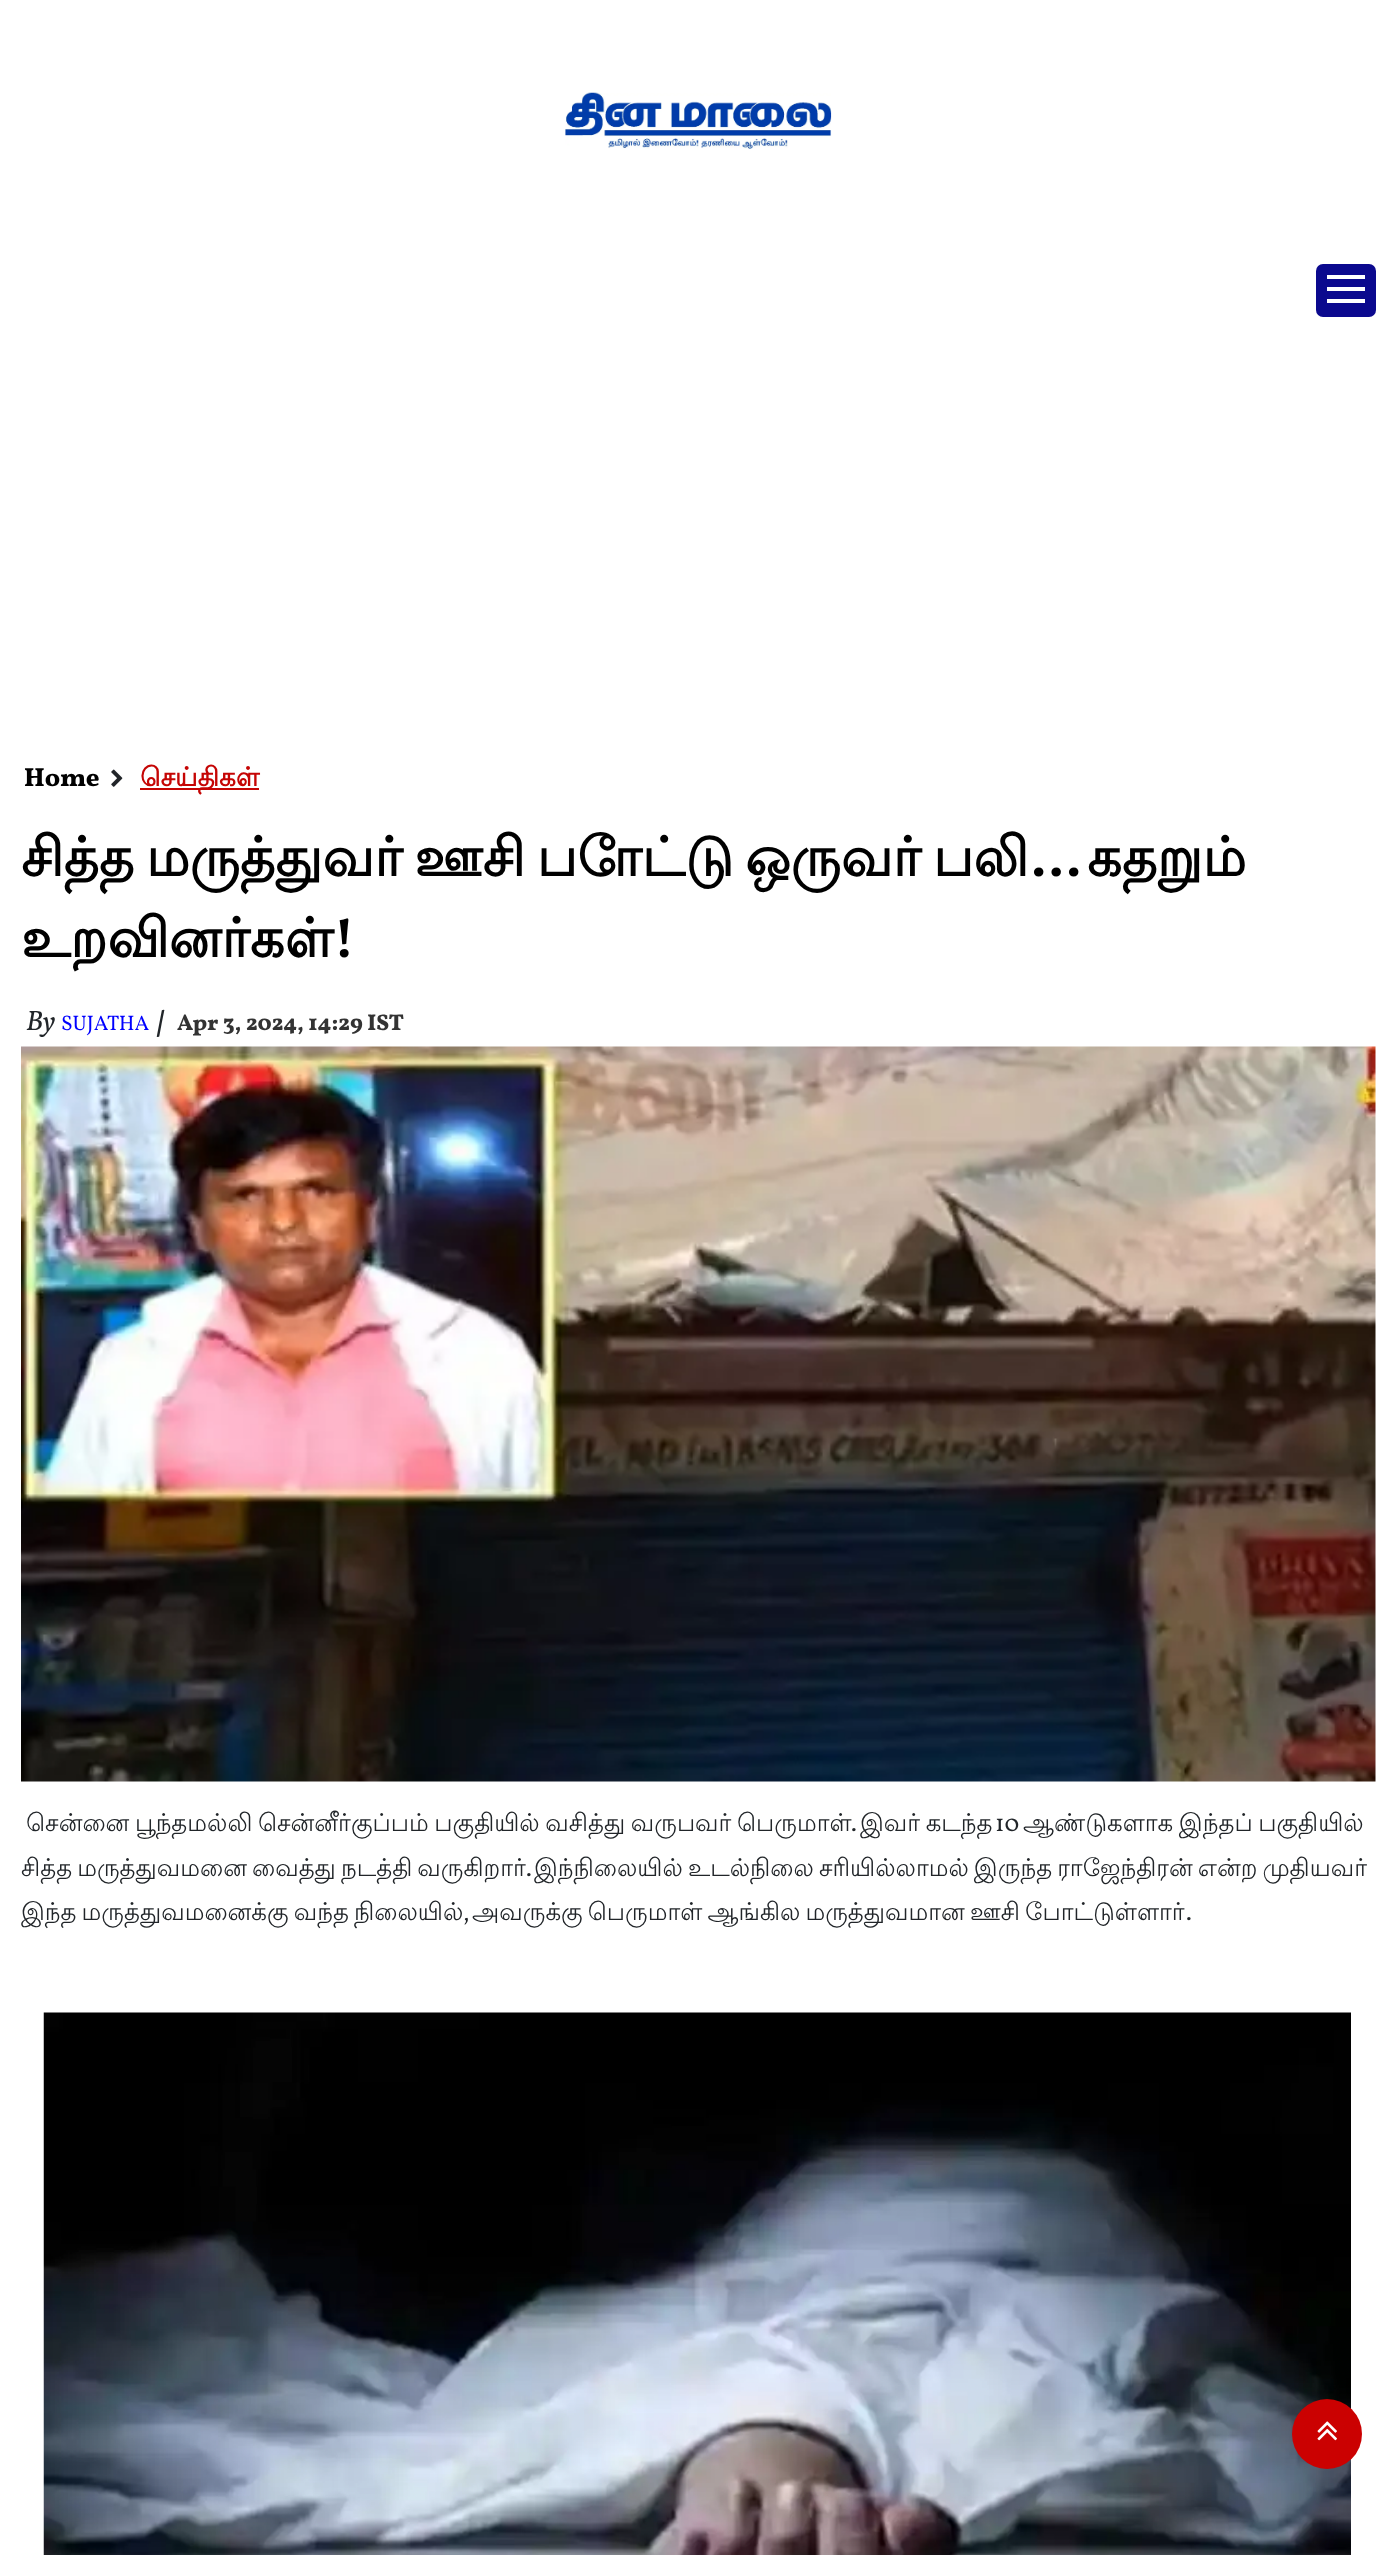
<!DOCTYPE html>
<meta charset="utf-8">
<style>body { margin: 0 } canvas { display: block }</style>
<canvas id="canvas" width="1395" height="2555"></canvas>
<img id="img1" src="images/1.png" hidden>
<img id="img2" src="images/2.png" hidden>
<img id="img3" src="images/3.png" hidden>
<img id="img4" src="images/4.png" hidden>
<img id="img5" src="images/5.png" hidden>
<script>
window.onload = function () {
    const canvas = document.getElementById('canvas');
    const context = canvas.getContext('2d');
    context.miterLimit = 4;
    context.fontKerning = 'normal';

    context.fillStyle = 'rgb(255, 255, 255)';
    context.fillRect(0, 0, 1395, 2555);
    context.drawImage(document.getElementById('img1'), 565, 92, 267, 57);
    context.fillStyle = 'rgb(11, 9, 142)';
    context.beginPath();
    context.roundRect(1316, 264, 60, 53, 7);
    context.fill();
    context.fillStyle = 'rgb(255, 255, 255)';
    context.fillRect(1327, 287, 38, 4);
    context.fillRect(1327, 275, 38, 4);
    context.fillRect(1327, 299, 38, 4);
    context.drawImage(document.getElementById('img2'), 111, 769, 12, 18);
    context.fillStyle = 'rgb(197, 5, 4)';
    context.fillRect(140, 788, 119, 2);
    context.drawImage(document.getElementById('img3'), 21, 1046, 1355, 736);
    context.drawImage(document.getElementById('img4'), 43, 2012, 1308, 543);
    context.fillStyle = 'rgb(203, 1, 1)';
    context.beginPath();
    context.arc(1327, 2434, 35, 0, 2 * Math.PI);
    context.fill();
    context.drawImage(document.getElementById('img5'), 1317, 2421, 20, 20);
    context.font = '800 26.25px Vollkorn';
    context.fillStyle = 'rgb(0, 0, 0)';
    context.fillText('Home', 24, 786);
    context.font = 'bold 26.25px Lohit Tamil';
    context.fillStyle = 'rgb(197, 5, 4)';
    context.fillText('செய்திகள்', 140, 786);
    context.wordSpacing = '-4.5px';
    context.font = 'bold 54.25px Lohit Tamil';
    context.fillStyle = 'rgb(0, 0, 0)';
    context.fillText('சித்த மருத்துவர் ஊசி போட்டு ஒருவர் பலி', 21, 876);
    context.wordSpacing = '0px';
    context.font = 'bold 54.25px Vollkorn';
    context.fillText('...', 1031, 876);
    context.font = 'bold 54.25px Lohit Tamil';
    context.fillText('கதறும்', 1087, 876);
    context.fillText('உறவினர்கள்', 21, 957);
    context.font = 'bold 54.25px Vollkorn';
    context.fillText('!', 333, 957);
    context.font = 'italic 28px Vollkorn';
    context.fillStyle = 'rgb(33, 37, 41)';
    context.fillText('By', 26, 1030);
    context.font = '21px Vollkorn';
    context.fillStyle = 'rgb(0, 0, 255)';
    context.fillText('SUJATHA', 61, 1030);
    context.font = 'italic 900 28px Vollkorn';
    context.fillStyle = 'rgb(33, 37, 41)';
    context.fillText('|', 158, 1030);
    context.font = '800 22.75px Vollkorn';
    context.fillStyle = 'rgb(51, 51, 51)';
    context.fillText('Apr 3, 2024, 14:29 IST', 177, 1030);
    context.wordSpacing = '-1.75px';
    context.font = '24.5px Lohit Tamil';
    context.fillStyle = 'rgb(33, 37, 41)';
    context.fillText('சென்னை பூந்தமல்லி சென்னீர்குப்பம் பகுதியில் வசித்து வருபவர் பெருமாள்', 26, 1831);
    context.wordSpacing = '0px';
    context.font = '24.5px Vollkorn';
    context.fillText('.', 851, 1831);
    context.wordSpacing = '-1.75px';
    context.font = '24.5px Lohit Tamil';
    context.fillText('இவர் கடந்த', 860, 1831);
    context.wordSpacing = '0px';
    context.font = '24.5px Vollkorn';
    context.fillText('10', 995, 1831);
    context.wordSpacing = '-1.75px';
    context.font = '24.5px Lohit Tamil';
    context.fillText('ஆண்டுகளாக இந்தப் பகுதியில்', 1023, 1831);
    context.wordSpacing = '-2.25px';
    context.fillText('சித்த மருத்துவமனை வைத்து நடத்தி வருகிறார்', 21, 1876);
    context.wordSpacing = '0px';
    context.font = '24.5px Vollkorn';
    context.fillText('.', 526, 1876);
    context.wordSpacing = '-2.25px';
    context.font = '24.5px Lohit Tamil';
    context.fillText('இந்நிலையில் உடல்நிலை சரியில்லாமல் இருந்த ராஜேந்திரன் என்ற முதியவர்', 534, 1876);
    context.fillText('இந்த மருத்துவமனைக்கு வந்த நிலையில்', 21, 1920);
    context.wordSpacing = '0px';
    context.font = '24.5px Vollkorn';
    context.fillText(',', 463, 1920);
    context.wordSpacing = '-2.25px';
    context.font = '24.5px Lohit Tamil';
    context.fillText('அவருக்கு பெருமாள் ஆங்கில மருத்துவமான ஊசி போட்டுள்ளார்', 472, 1920);
    context.wordSpacing = '0px';
    context.font = '24.5px Vollkorn';
    context.fillText('.', 1186, 1920);
};
</script>
